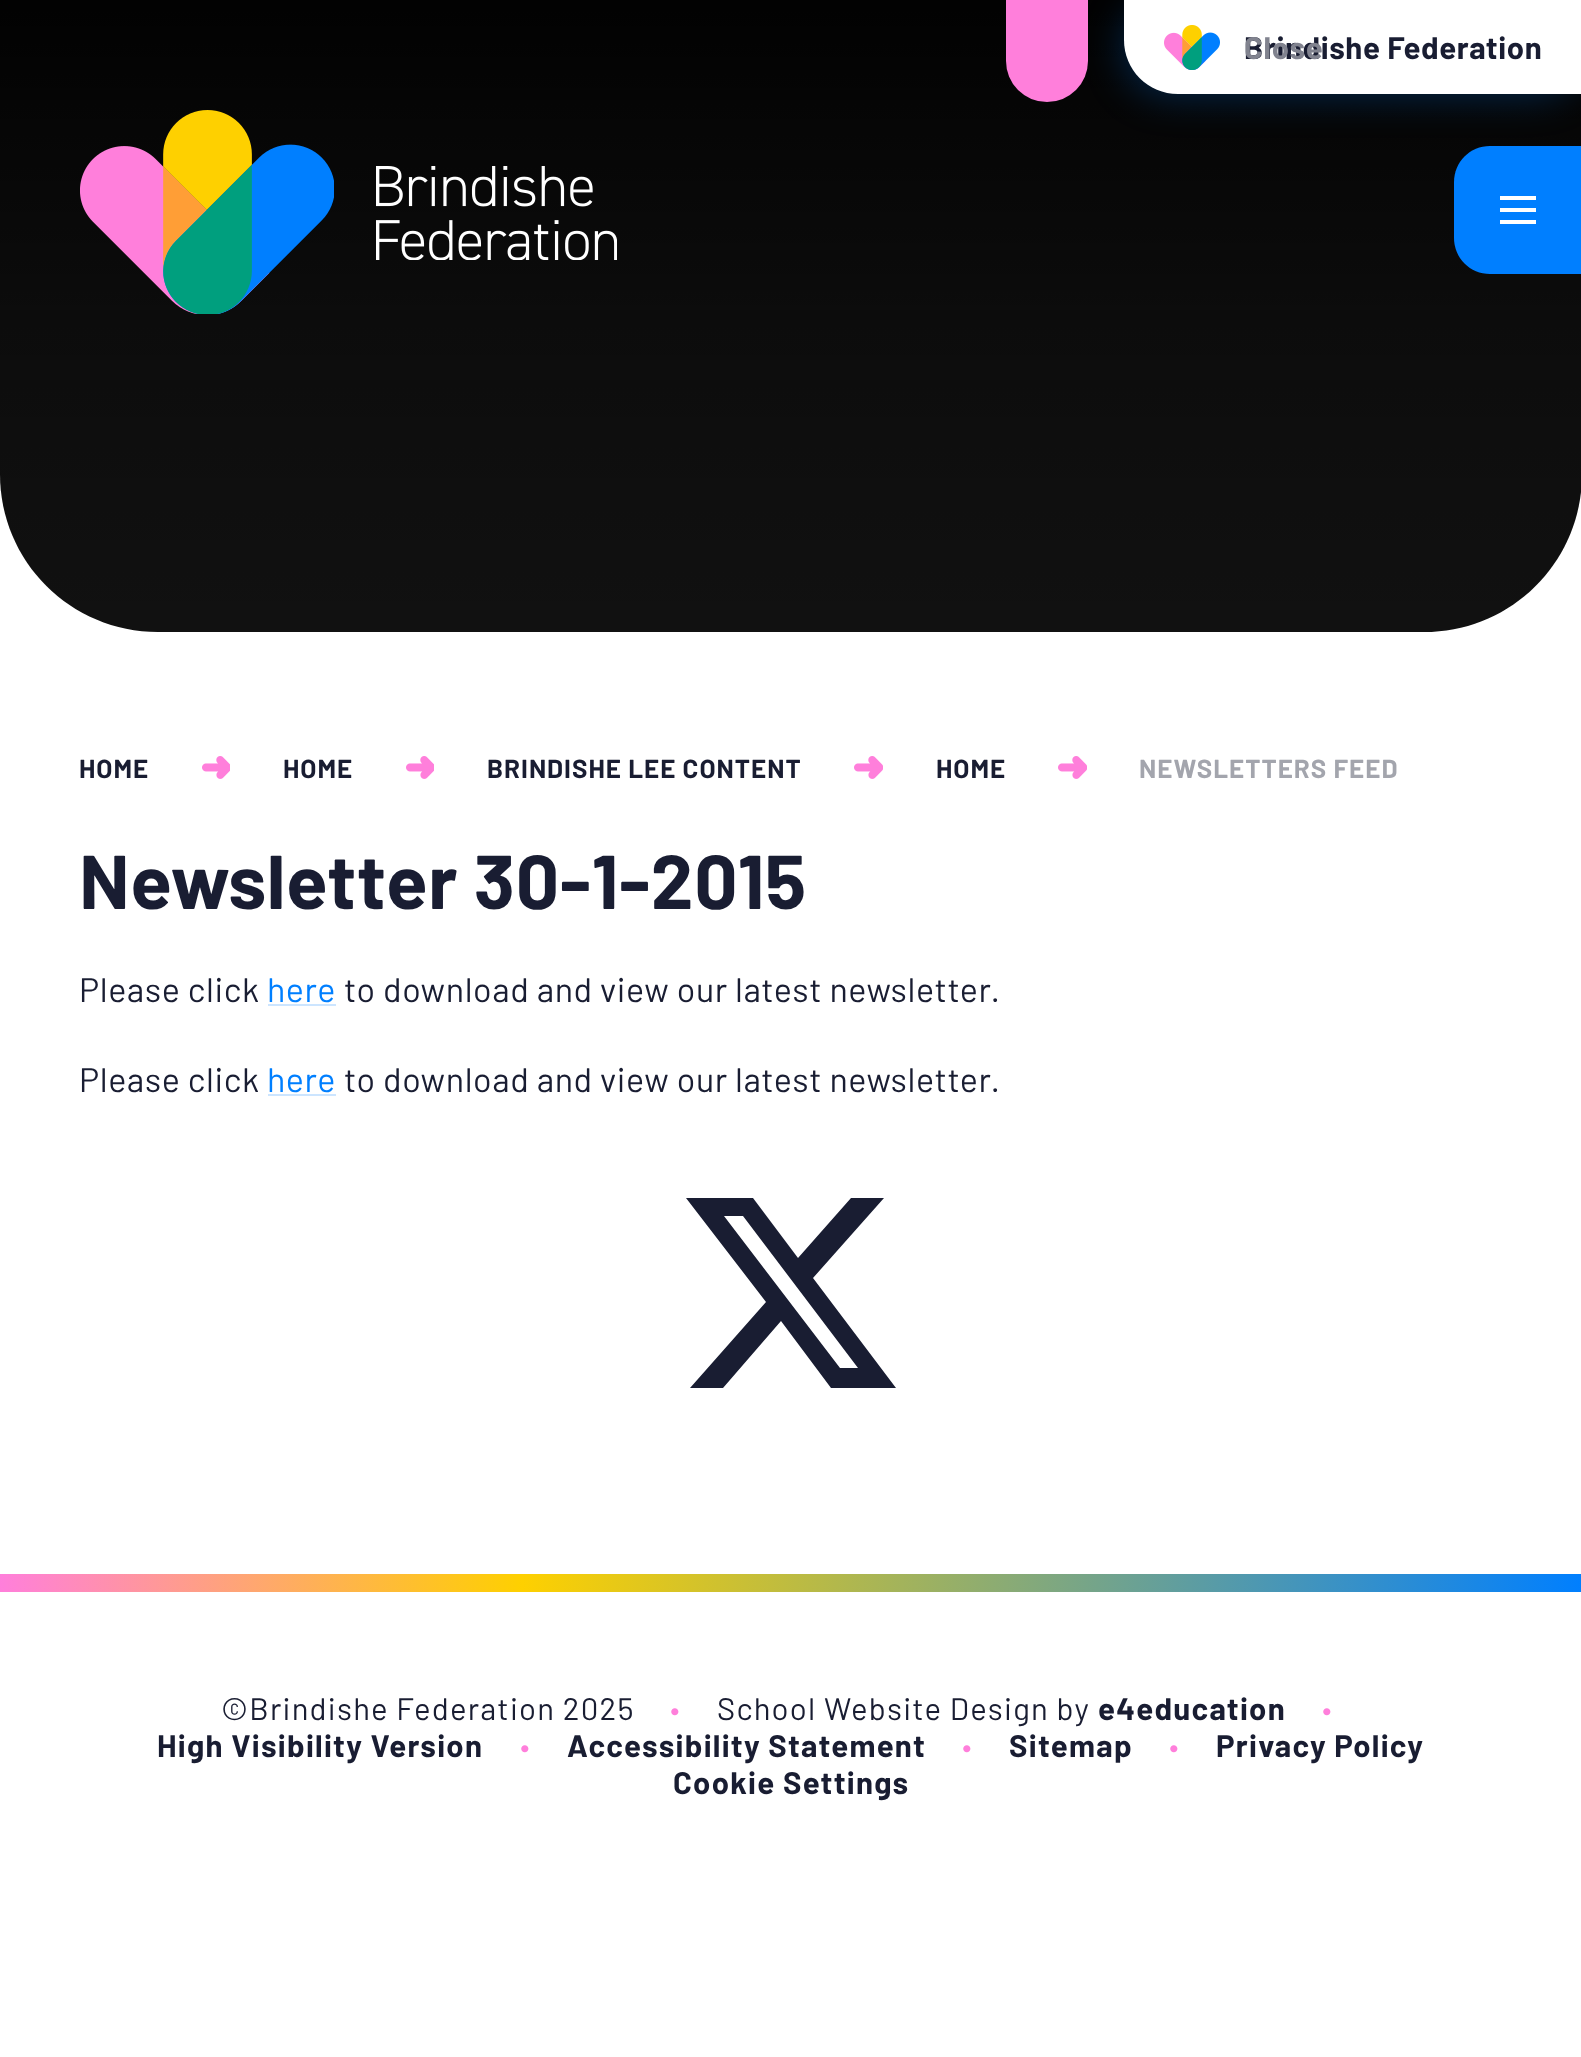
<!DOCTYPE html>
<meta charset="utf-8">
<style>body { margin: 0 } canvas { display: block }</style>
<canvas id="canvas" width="1581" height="2057"></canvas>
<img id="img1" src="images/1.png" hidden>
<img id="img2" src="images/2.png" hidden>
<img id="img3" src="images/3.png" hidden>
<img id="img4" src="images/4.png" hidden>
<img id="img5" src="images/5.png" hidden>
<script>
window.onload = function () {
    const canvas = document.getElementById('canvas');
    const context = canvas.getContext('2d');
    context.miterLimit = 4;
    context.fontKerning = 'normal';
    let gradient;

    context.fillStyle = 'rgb(255, 255, 255)';
    context.fillRect(0, 0, 1581, 2057);
    context.fillStyle = 'rgb(17, 17, 17)';
    context.beginPath();
    context.moveTo(0, 0);
    context.lineTo(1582, 0);
    context.lineTo(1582, 474);
    context.bezierCurveTo(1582, 561.5, 1511.5, 632, 1424, 632);
    context.lineTo(158, 632);
    context.bezierCurveTo(70.5, 632, 0, 561.5, 0, 474);
    context.closePath();
    context.fill();
    gradient = context.createLinearGradient(791, 0, 791, 632);
    gradient.addColorStop(0, 'rgba(0, 0, 0, 0.9)');
    gradient.addColorStop(0.5, 'rgba(0, 0, 0, 0.3)');
    gradient.addColorStop(1, 'rgba(0, 0, 0, 0)');
    context.fillStyle = gradient;
    context.beginPath();
    context.moveTo(0, 0);
    context.lineTo(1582, 0);
    context.lineTo(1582, 474);
    context.bezierCurveTo(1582, 561.5, 1511.5, 632, 1424, 632);
    context.lineTo(158, 632);
    context.bezierCurveTo(70.5, 632, 0, 561.5, 0, 474);
    context.closePath();
    context.fill();
    context.fillStyle = 'rgba(0, 127, 255, 0.3)';
    context.filter = 'blur(20px)';
    context.beginPath();
    context.roundRect(1124, 0, 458, 94, 54);
    context.fill();
    context.filter = 'none';
    context.fillStyle = 'rgb(255, 127, 219)';
    context.beginPath();
    context.roundRect(1006, 0, 82, 102, [0, 0, 41, 41]);
    context.fill();
    context.fillStyle = 'rgb(255, 255, 255)';
    context.beginPath();
    context.moveTo(1124, 0);
    context.lineTo(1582, 0);
    context.lineTo(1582, 94);
    context.lineTo(1178, 94);
    context.bezierCurveTo(1148, 94, 1124, 70, 1124, 40);
    context.closePath();
    context.fill();
    context.drawImage(document.getElementById('img1'), 1164, 25, 56, 45);
    context.drawImage(document.getElementById('img2'), 80, 110, 254, 204);
    context.drawImage(document.getElementById('img3'), 376, 166, 241, 94);
    context.fillStyle = 'rgb(0, 127, 255)';
    context.beginPath();
    context.moveTo(1490, 146);
    context.lineTo(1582, 146);
    context.lineTo(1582, 274);
    context.lineTo(1490, 274);
    context.bezierCurveTo(1470, 274, 1454, 258, 1454, 238);
    context.lineTo(1454, 182);
    context.bezierCurveTo(1454, 162, 1470, 146, 1490, 146);
    context.closePath();
    context.fill();
    context.fillStyle = 'rgb(255, 255, 255)';
    context.fillRect(1500, 196, 36, 4);
    context.fillRect(1500, 208, 36, 4);
    context.fillRect(1500, 220, 36, 4);
    context.drawImage(document.getElementById('img4'), 202, 756, 28, 23);
    context.drawImage(document.getElementById('img4'), 406, 756, 28, 23);
    context.drawImage(document.getElementById('img5'), 854, 756, 29, 23);
    context.drawImage(document.getElementById('img5'), 1058, 756, 29, 23);
    context.fillStyle = 'rgb(204, 229, 255)';
    context.fillRect(268, 1004, 68, 2);
    context.fillRect(268, 1094, 68, 2);
    context.fillStyle = 'rgb(25, 29, 50)';
    context.beginPath();
    context.moveTo(851, 1198);
    context.lineTo(884, 1198);
    context.lineTo(813, 1278);
    context.lineTo(896, 1388);
    context.lineTo(831, 1388);
    context.lineTo(781, 1321);
    context.lineTo(723, 1388);
    context.lineTo(690, 1388);
    context.lineTo(766, 1302);
    context.lineTo(686, 1198);
    context.lineTo(753, 1198);
    context.lineTo(798, 1258);
    context.closePath();
    context.moveTo(840, 1368);
    context.lineTo(858, 1368);
    context.lineTo(743, 1216);
    context.lineTo(724, 1216);
    context.closePath();
    context.fill();
    gradient = context.createLinearGradient(0, 1583, 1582, 1583);
    gradient.addColorStop(0, 'rgb(255, 127, 219)');
    gradient.addColorStop(0.33, 'rgb(254, 208, 0)');
    gradient.addColorStop(1, 'rgb(0, 127, 255)');
    context.fillStyle = gradient;
    context.fillRect(0, 1574, 1581, 18);
    context.letterSpacing = '0.6px';
    context.font = 'bold 31.1px Barlow';
    context.fillStyle = 'rgb(25, 29, 50)';
    context.fillText('Brindishe Federation', 1244, 59);
    context.fillStyle = 'rgb(129, 131, 143)';
    context.fillText('Close', 1244, 59);
    context.letterSpacing = '1px';
    context.font = 'bold 26px Barlow';
    context.fillStyle = 'rgb(25, 29, 50)';
    context.fillText('HOME', 79, 778);
    context.fillText('HOME', 283, 778);
    context.fillText('BRINDISHE LEE CONTENT', 487, 778);
    context.fillText('HOME', 936, 778);
    context.fillStyle = 'rgb(163, 165, 173)';
    context.fillText('NEWSLETTERS FEED', 1139, 778);
    context.letterSpacing = '0.6px';
    context.font = 'bold 76.25px Barlow';
    context.fillStyle = 'rgb(25, 29, 50)';
    context.fillText('Newsletter 30-1-2015', 79, 909);
    context.font = '34px Barlow';
    context.fillText('Please click', 79, 1002);
    context.fillStyle = 'rgb(0, 127, 255)';
    context.fillText('here', 267, 1002);
    context.fillStyle = 'rgb(25, 29, 50)';
    context.fillText('to download and view our latest newsletter.', 344, 1002);
    context.fillText('Please click', 79, 1092);
    context.fillStyle = 'rgb(0, 127, 255)';
    context.fillText('here', 267, 1092);
    context.fillStyle = 'rgb(25, 29, 50)';
    context.fillText('to download and view our latest newsletter.', 344, 1092);
    context.letterSpacing = '1.25px';
    context.font = '31.1px Barlow';
    context.fillText('©Brindishe Federation 2025', 221, 1720);
    context.fillStyle = 'rgb(255, 127, 219)';
    context.fillText('•', 670, 1720);
    context.fillStyle = 'rgb(25, 29, 50)';
    context.fillText('School Website Design by', 717, 1720);
    context.font = 'bold 31.1px Barlow';
    context.fillText('e4education', 1098, 1720);
    context.font = '31.1px Barlow';
    context.fillStyle = 'rgb(255, 127, 219)';
    context.fillText('•', 1322, 1720);
    context.font = 'bold 31.1px Barlow';
    context.fillStyle = 'rgb(25, 29, 50)';
    context.fillText('High Visibility Version', 157, 1757);
    context.font = '31.1px Barlow';
    context.fillStyle = 'rgb(255, 127, 219)';
    context.fillText('•', 520, 1757);
    context.font = 'bold 31.1px Barlow';
    context.fillStyle = 'rgb(25, 29, 50)';
    context.fillText('Accessibility Statement', 567, 1757);
    context.font = '31.1px Barlow';
    context.fillStyle = 'rgb(255, 127, 219)';
    context.fillText('•', 962, 1757);
    context.font = 'bold 31.1px Barlow';
    context.fillStyle = 'rgb(25, 29, 50)';
    context.fillText('Sitemap', 1009, 1757);
    context.font = '31.1px Barlow';
    context.fillStyle = 'rgb(255, 127, 219)';
    context.fillText('•', 1169, 1757);
    context.font = 'bold 31.1px Barlow';
    context.fillStyle = 'rgb(25, 29, 50)';
    context.fillText('Privacy Policy', 1216, 1757);
    context.fillText('Cookie Settings', 673, 1794);
};
</script>
